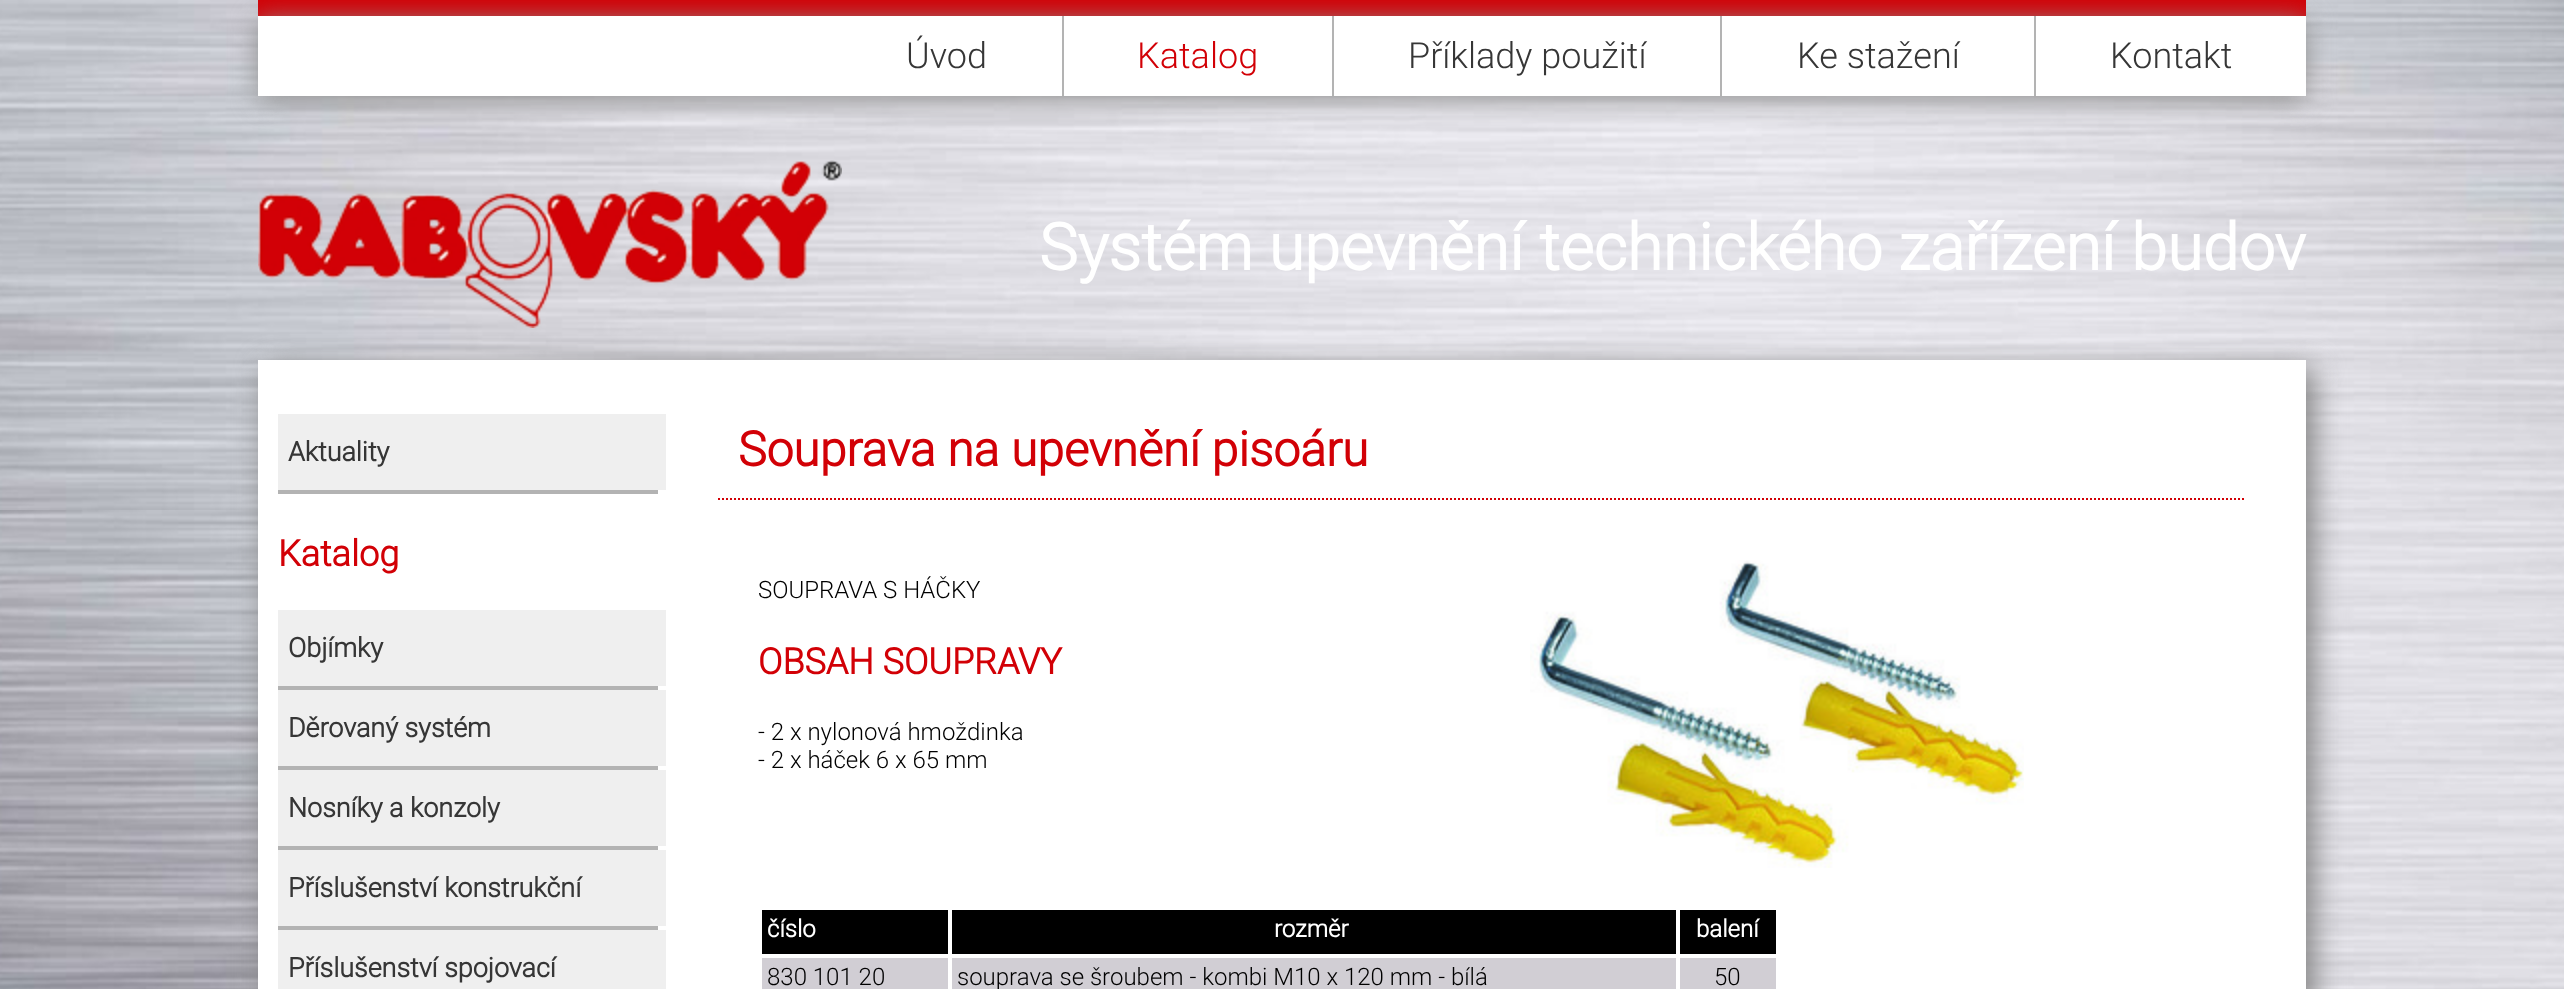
<!DOCTYPE html>
<meta charset="utf-8">
<style>body { margin: 0 } canvas { display: block }</style>
<canvas id="canvas" width="2564" height="989"></canvas>
<img id="img1" src="images/1.png" hidden>
<img id="img2" src="images/2.png" hidden>
<img id="img3" src="images/3.png" hidden>
<script>
window.onload = function () {
    const canvas = document.getElementById('canvas');
    const context = canvas.getContext('2d');
    context.miterLimit = 4;
    context.fontKerning = 'normal';

    context.fillStyle = 'rgb(255, 255, 255)';
    context.fillRect(0, 0, 2564, 989);
    context.drawImage(document.getElementById('img1'), 0, 0, 2564, 989);
    context.fillRect(258, 16, 2048, 80);
    context.fillStyle = 'rgb(210, 0, 6)';
    context.fillRect(258, 0, 2048, 16);
    context.save();
    context.beginPath();
    context.moveTo(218, 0);
    context.lineTo(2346, 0);
    context.lineTo(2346, 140);
    context.lineTo(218, 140);
    context.closePath();
    context.moveTo(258, 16);
    context.lineTo(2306, 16);
    context.lineTo(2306, 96);
    context.lineTo(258, 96);
    context.closePath();
    context.clip('evenodd');
    context.fillStyle = 'rgb(144, 144, 144)';
    context.filter = 'blur(13px)';
    context.beginPath();
    context.rect(258, 20, 2048, 80);
    context.fill();
    context.filter = 'none';
    context.restore();
    context.fillStyle = 'rgb(179, 179, 179)';
    context.fillRect(1062, 16, 2, 80);
    context.fillRect(1332, 16, 2, 80);
    context.fillRect(1720, 16, 2, 80);
    context.fillRect(2034, 16, 2, 80);
    context.drawImage(document.getElementById('img2'), 258, 160, 584, 168);
    context.fillStyle = 'rgb(255, 255, 255)';
    context.fillRect(258, 360, 400, 629);
    context.save();
    context.beginPath();
    context.moveTo(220, 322);
    context.lineTo(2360, 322);
    context.lineTo(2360, 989);
    context.lineTo(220, 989);
    context.closePath();
    context.moveTo(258, 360);
    context.lineTo(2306, 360);
    context.lineTo(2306, 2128);
    context.lineTo(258, 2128);
    context.closePath();
    context.clip('evenodd');
    context.fillStyle = 'rgb(128, 128, 128)';
    context.filter = 'blur(15px)';
    context.beginPath();
    context.rect(266, 368, 2048, 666);
    context.fill();
    context.filter = 'none';
    context.restore();
    context.fillStyle = 'rgb(179, 179, 179)';
    context.fillRect(278, 490, 380, 4);
    context.fillStyle = 'rgb(255, 255, 255)';
    context.fillRect(658, 360, 1648, 629);
    context.fillStyle = 'rgb(239, 239, 239)';
    context.fillRect(278, 414, 388, 76);
    context.fillStyle = 'rgb(179, 179, 179)';
    context.fillRect(278, 686, 380, 244);
    context.fillStyle = 'rgb(239, 239, 239)';
    context.fillRect(278, 610, 388, 76);
    context.fillRect(278, 690, 388, 76);
    context.fillRect(278, 770, 388, 76);
    context.fillRect(278, 850, 388, 76);
    context.fillRect(278, 930, 388, 59);
    context.beginPath();
    context.moveTo(718, 499);
    context.lineTo(2246, 499);
    context.strokeStyle = 'rgb(210, 0, 6)';
    context.lineWidth = 2;
    context.setLineDash([2, 2]);
    context.stroke();
    context.fillStyle = 'rgb(0, 0, 0)';
    context.fillRect(762, 910, 186, 44);
    context.fillRect(952, 910, 724, 44);
    context.fillRect(1680, 910, 96, 44);
    context.fillStyle = 'rgb(209, 206, 212)';
    context.fillRect(762, 958, 186, 31);
    context.fillRect(952, 958, 724, 31);
    context.fillRect(1680, 958, 96, 31);
    context.drawImage(document.getElementById('img3'), 1530, 560, 494, 308);
    context.font = '300 36px Roboto';
    context.fillStyle = 'rgb(54, 54, 54)';
    context.fillText('Úvod', 906, 68);
    context.fillStyle = 'rgb(210, 0, 6)';
    context.fillText('Katalog', 1137, 68);
    context.fillStyle = 'rgb(54, 54, 54)';
    context.fillText('Příklady použití', 1408, 68);
    context.fillText('Ke stažení', 1797, 68);
    context.fillText('Kontakt', 2110, 68);
    context.font = 'bold 64.75px Roboto';
    context.fillStyle = 'rgb(255, 255, 255)';
    context.fillText('Systém upevnění technického zařízení budov', 1039, 270);
    context.font = 'bold 26.9px Roboto';
    context.fillStyle = 'rgb(54, 54, 54)';
    context.fillText('Aktuality', 288, 461);
    context.font = 'bold 36px Roboto';
    context.fillStyle = 'rgb(210, 0, 6)';
    context.fillText('Katalog', 278, 566);
    context.font = 'bold 26.9px Roboto';
    context.fillStyle = 'rgb(54, 54, 54)';
    context.fillText('Objímky', 288, 657);
    context.fillText('Děrovaný systém', 288, 737);
    context.fillText('Nosníky a konzoly', 288, 817);
    context.fillText('Příslušenství konstrukční', 288, 897);
    context.fillText('Příslušenství spojovací', 288, 977);
    context.font = 'bold 48px Roboto';
    context.fillStyle = 'rgb(210, 0, 6)';
    context.fillText('Souprava na upevnění pisoáru', 738, 466);
    context.font = '300 24px Roboto';
    context.fillStyle = 'rgb(0, 0, 0)';
    context.fillText('SOUPRAVA S HÁČKY', 758, 598);
    context.font = 'bold 36px Roboto';
    context.fillStyle = 'rgb(210, 0, 6)';
    context.fillText('OBSAH SOUPRAVY', 758, 674);
    context.font = '300 24px Roboto';
    context.fillStyle = 'rgb(0, 0, 0)';
    context.fillText('- 2 x nylonová hmoždinka', 758, 740);
    context.fillText('- 2 x háček 6 x 65 mm', 758, 768);
    context.font = 'bold 24px Roboto';
    context.fillStyle = 'rgb(255, 255, 255)';
    context.fillText('číslo', 767, 937);
    context.fillText('rozměr', 1274, 937);
    context.fillText('balení', 1696, 937);
    context.font = '300 24px Roboto';
    context.fillStyle = 'rgb(0, 0, 0)';
    context.fillText('830 101 20', 767, 985);
    context.fillText('souprava se šroubem - kombi M10 x 120 mm - bílá', 957, 985);
    context.fillText('50', 1714, 985);
};
</script>
